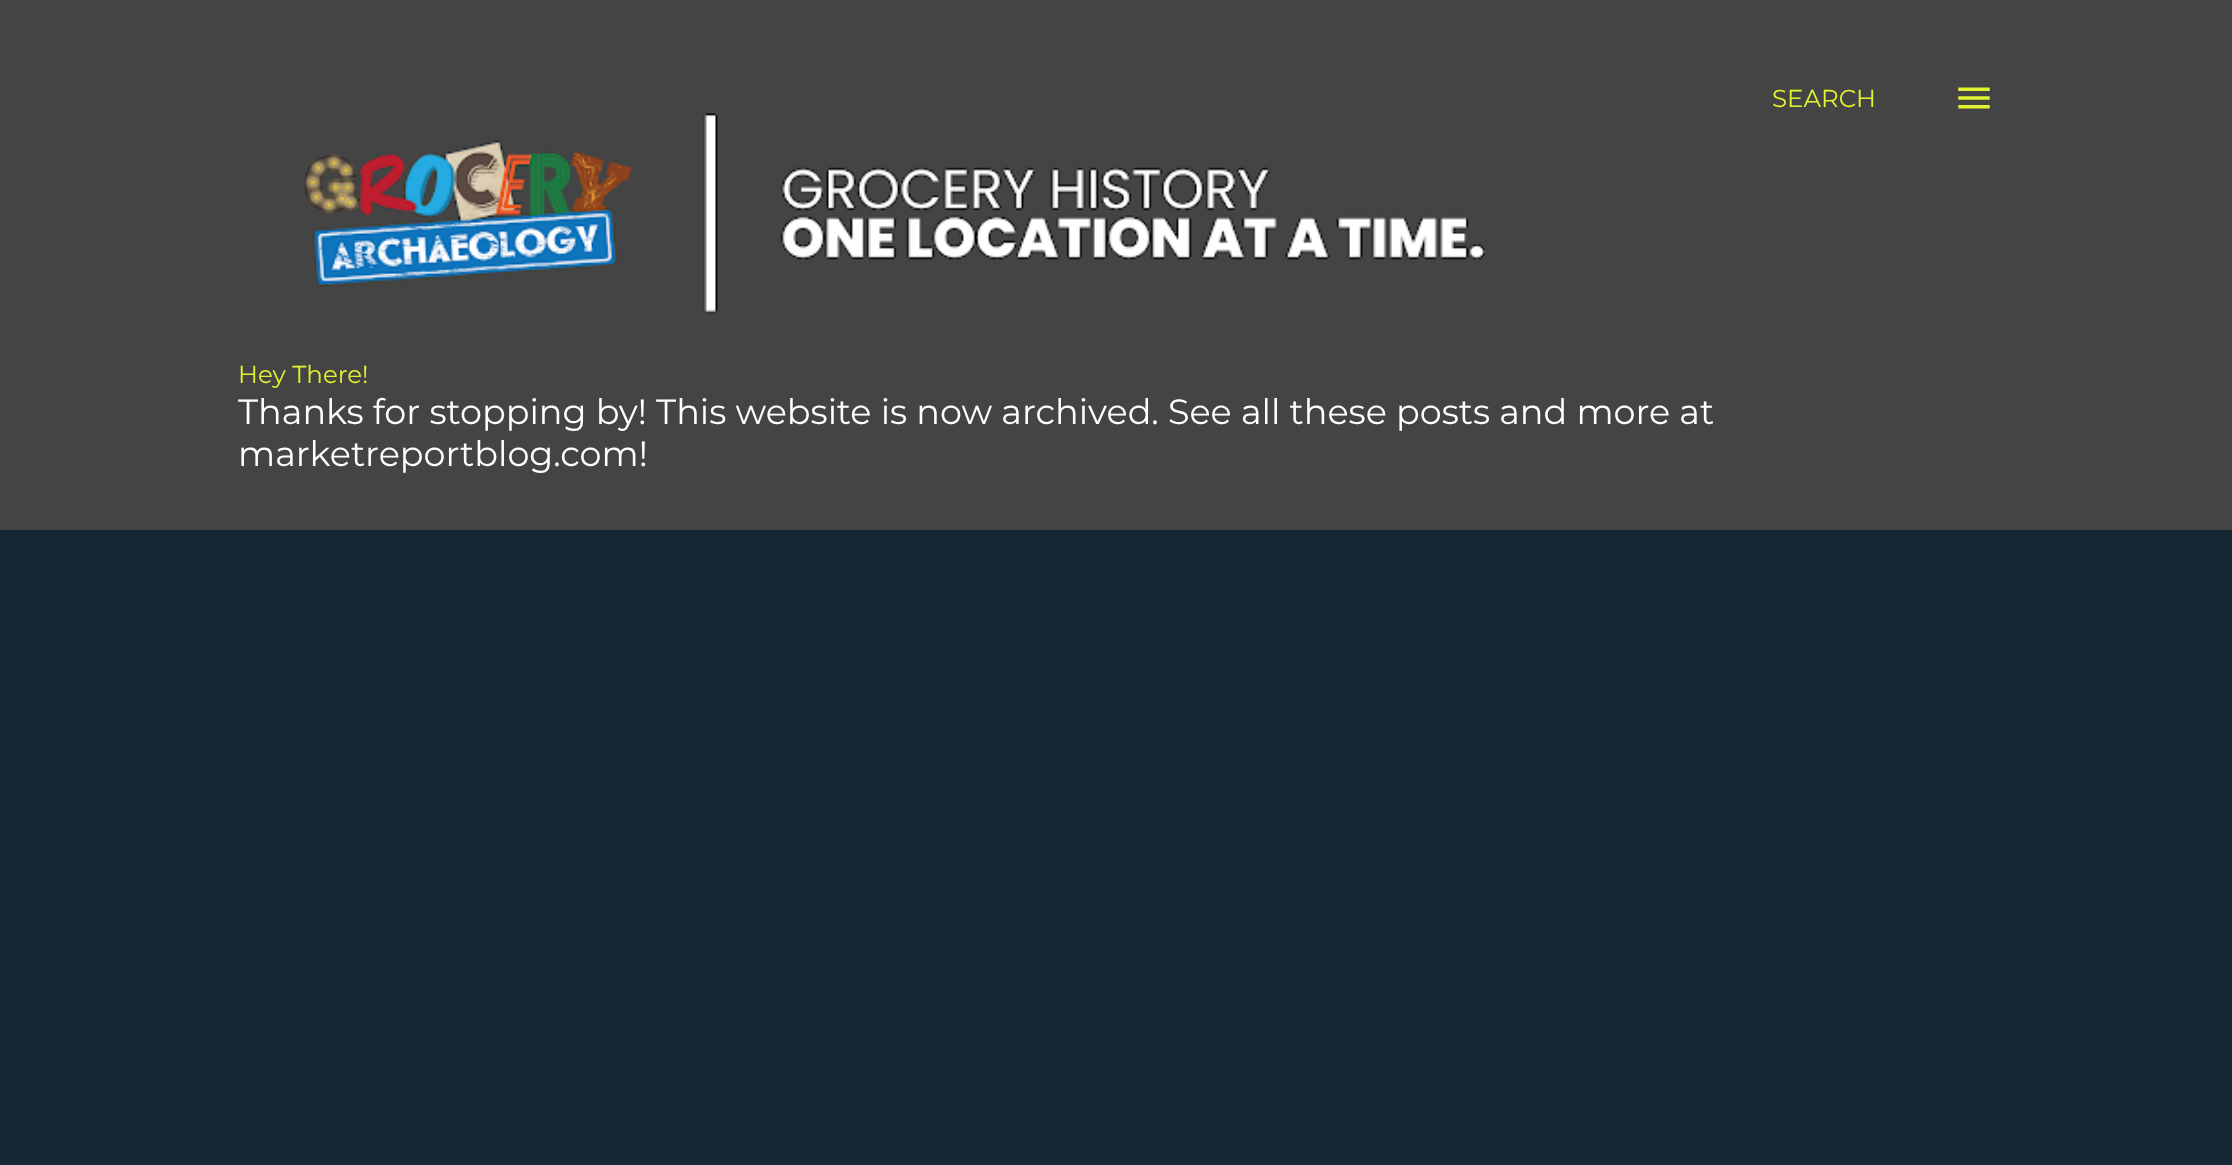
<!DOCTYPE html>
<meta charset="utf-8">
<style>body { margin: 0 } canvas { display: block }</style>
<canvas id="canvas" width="2232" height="1165"></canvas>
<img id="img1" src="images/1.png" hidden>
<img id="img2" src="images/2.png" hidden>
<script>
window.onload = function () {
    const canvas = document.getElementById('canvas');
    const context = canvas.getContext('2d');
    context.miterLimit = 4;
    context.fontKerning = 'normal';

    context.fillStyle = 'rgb(22, 38, 51)';
    context.fillRect(0, 0, 2232, 1165);
    context.fillStyle = 'rgb(68, 68, 68)';
    context.fillRect(0, 0, 2232, 530);
    context.drawImage(document.getElementById('img1'), 303, 113, 1183, 201);
    context.drawImage(document.getElementById('img2'), 1958, 87, 32, 22);
    context.font = '24.5px Montserrat';
    context.fillStyle = 'rgb(225, 242, 48)';
    context.fillText('SEARCH', 1772, 107);
    context.fillText('Hey There!', 238, 383);
    context.font = '35px Montserrat';
    context.fillStyle = 'rgb(255, 255, 255)';
    context.fillText('Thanks for stopping by! This website is now archived. See all these posts and more at', 238, 424);
    context.fillText('marketreportblog.com!', 238, 466);
};
</script>
